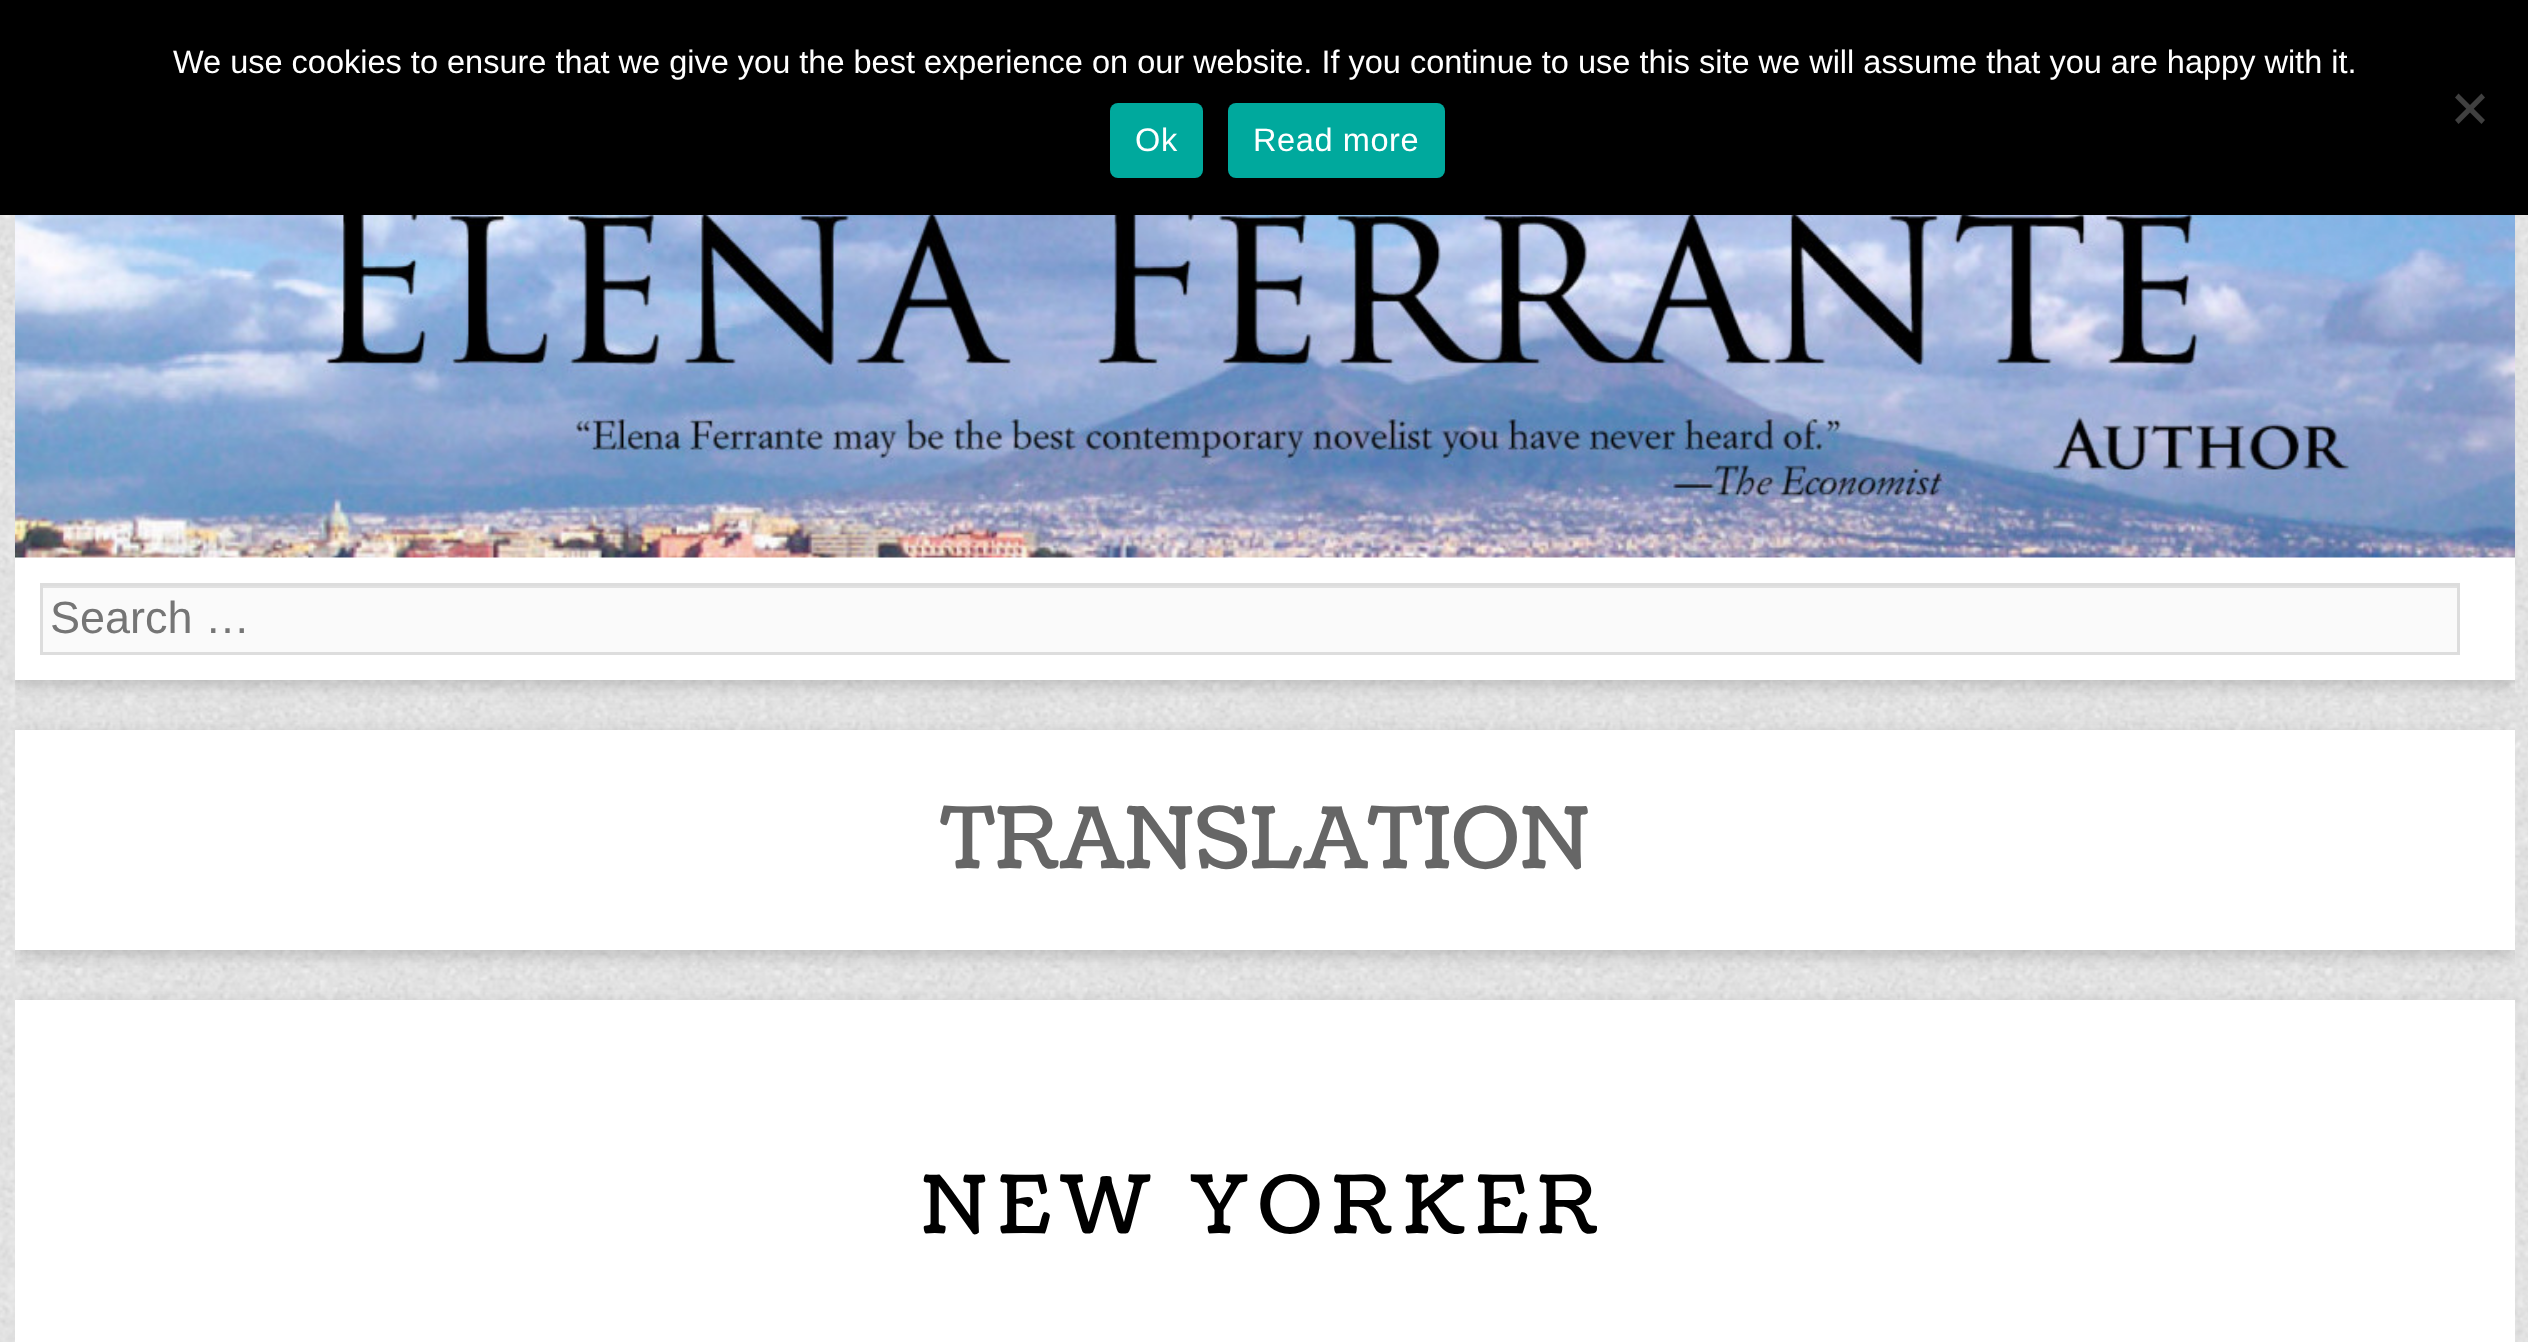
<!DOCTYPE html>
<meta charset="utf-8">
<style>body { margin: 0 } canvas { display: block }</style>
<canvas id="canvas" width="2528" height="1342"></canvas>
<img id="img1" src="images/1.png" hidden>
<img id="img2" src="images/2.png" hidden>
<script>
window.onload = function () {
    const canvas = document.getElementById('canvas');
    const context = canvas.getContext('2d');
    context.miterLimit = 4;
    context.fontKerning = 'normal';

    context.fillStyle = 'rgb(255, 255, 255)';
    context.fillRect(0, 0, 2528, 1342);
    context.drawImage(document.getElementById('img1'), 0, 215, 2528, 1127);
    context.save();
    context.beginPath();
    context.rect(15, 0, 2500, 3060);
    context.clip();
    context.fillStyle = 'rgba(100, 100, 100, 0.3)';
    context.filter = 'blur(7.5px)';
    context.beginPath();
    context.rect(15, 5, 2500, 680);
    context.fill();
    context.filter = 'none';
    context.restore();
    context.fillRect(15, 557, 2500, 123);
    context.drawImage(document.getElementById('img2'), 15, 215, 2500, 343);
    context.fillStyle = 'rgb(250, 250, 250)';
    context.fillRect(43, 588, 2414, 64);
    context.fillStyle = 'rgb(225, 225, 225)';
    context.fillRect(43, 586, 2415, 2);
    context.strokeStyle = 'rgb(221, 221, 221)';
    context.lineWidth = 3;
    context.strokeRect(41.5, 584.5, 2417, 69);
    context.fillStyle = 'rgb(0, 0, 0)';
    context.fillRect(0, 0, 2528, 215);
    context.fillStyle = 'rgb(64, 64, 64)';
    context.beginPath();
    context.moveTo(2481.5, 93.5);
    context.lineTo(2485, 97.5);
    context.lineTo(2458.5, 124);
    context.lineTo(2455, 120);
    context.closePath();
    context.fill();
    context.beginPath();
    context.moveTo(2455, 97.5);
    context.lineTo(2458.5, 93.5);
    context.lineTo(2485, 120);
    context.lineTo(2481.5, 124);
    context.closePath();
    context.fill();
    context.fillStyle = 'rgb(0, 169, 157)';
    context.beginPath();
    context.roundRect(1110, 103, 93, 75, 8);
    context.fill();
    context.beginPath();
    context.roundRect(1228, 103, 217, 75, 8);
    context.fill();
    context.save();
    context.beginPath();
    context.rect(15, 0, 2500, 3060);
    context.clip();
    context.fillStyle = 'rgba(100, 100, 100, 0.3)';
    context.filter = 'blur(7.5px)';
    context.beginPath();
    context.rect(15, 735, 2500, 220);
    context.fill();
    context.filter = 'none';
    context.restore();
    context.fillStyle = 'rgb(255, 255, 255)';
    context.fillRect(15, 730, 2500, 220);
    context.save();
    context.beginPath();
    context.rect(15, 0, 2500, 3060);
    context.clip();
    context.fillStyle = 'rgba(100, 100, 100, 0.3)';
    context.filter = 'blur(7.5px)';
    context.beginPath();
    context.rect(15, 1005, 2500, 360);
    context.fill();
    context.filter = 'none';
    context.restore();
    context.fillRect(15, 1000, 2500, 342);
    context.font = '45px Liberation Sans';
    context.fillStyle = 'rgb(117, 117, 117)';
    context.fillText('Search …', 50, 633);
    context.font = '32.5px Liberation Sans';
    context.fillStyle = 'rgb(255, 255, 255)';
    context.fillText('We use cookies to ensure that we give you the best experience on our website. If you continue to use this site we will assume that you are happy with it.', 173, 73);
    context.letterSpacing = '0.6px';
    context.fillText('Ok', 1135, 151);
    context.fillText('Read more', 1253, 151);
    context.letterSpacing = '0px';
    context.font = '85px Coustard';
    context.fillStyle = 'rgb(102, 102, 102)';
    context.fillText('TRANSLATION', 940, 868);
    context.letterSpacing = '10px';
    context.font = '80px Coustard';
    context.fillStyle = 'rgb(0, 0, 0)';
    context.fillText('NEW YORKER', 921, 1233);
};
</script>
